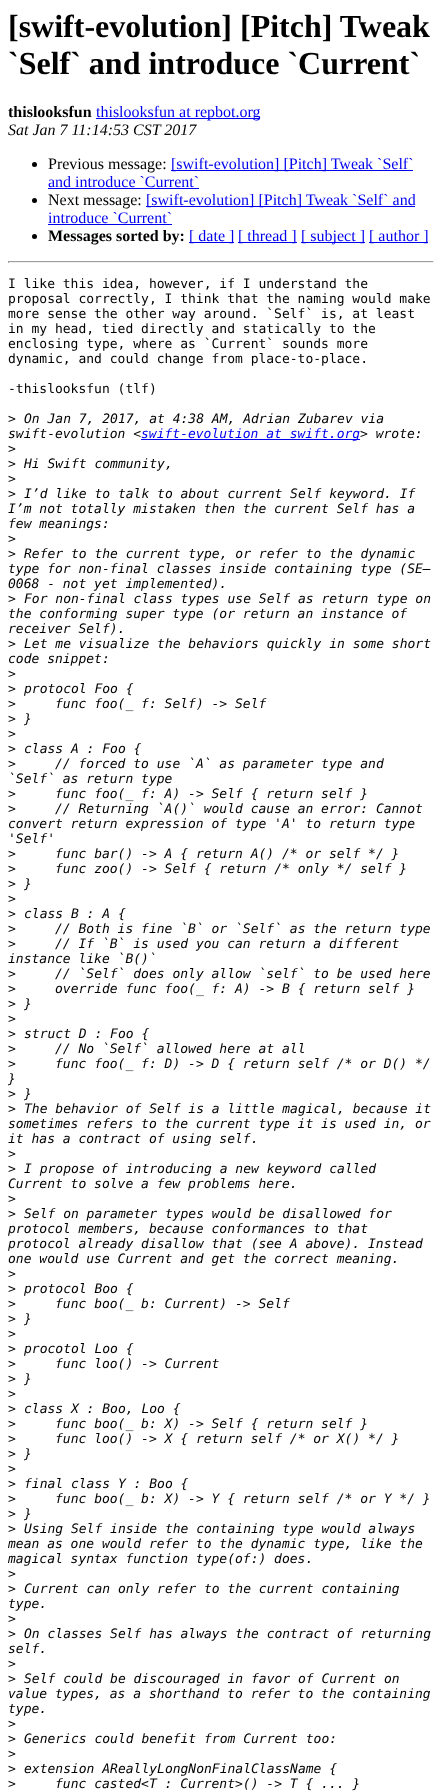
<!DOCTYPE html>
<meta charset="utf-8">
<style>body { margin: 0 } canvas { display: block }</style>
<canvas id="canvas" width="442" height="1791"></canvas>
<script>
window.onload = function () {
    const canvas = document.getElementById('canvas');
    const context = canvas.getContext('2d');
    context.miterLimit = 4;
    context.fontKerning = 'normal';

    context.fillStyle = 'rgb(255, 255, 255)';
    context.fillRect(0, 0, 442, 1791);
    context.fillStyle = 'rgb(0, 0, 238)';
    context.fillRect(96, 118, 164, 1);
    context.fillStyle = 'rgb(0, 0, 0)';
    context.beginPath();
    context.arc(34.5, 164.5, 2.5, 0, 2 * Math.PI);
    context.fill();
    context.fillStyle = 'rgb(0, 0, 238)';
    context.fillRect(171, 170, 242, 1);
    context.fillRect(48, 188, 151, 1);
    context.fillStyle = 'rgb(0, 0, 0)';
    context.beginPath();
    context.arc(34.5, 200.5, 2.5, 0, 2 * Math.PI);
    context.fill();
    context.fillStyle = 'rgb(0, 0, 238)';
    context.fillRect(146, 206, 269, 1);
    context.fillRect(48, 224, 124, 1);
    context.fillStyle = 'rgb(0, 0, 0)';
    context.beginPath();
    context.arc(34.5, 236.5, 2.5, 0, 2 * Math.PI);
    context.fill();
    context.fillStyle = 'rgb(0, 0, 238)';
    context.fillRect(189, 242, 45, 1);
    context.fillRect(238, 242, 59, 1);
    context.fillRect(301, 242, 64, 1);
    context.fillRect(369, 242, 59, 1);
    context.fillStyle = 'rgb(159, 159, 159)';
    context.fillRect(8, 261, 426, 1);
    context.fillStyle = 'rgb(238, 238, 238)';
    context.fillRect(433, 261, 1, 2);
    context.fillRect(8, 262, 426, 1);
    context.fillStyle = 'rgb(159, 159, 159)';
    context.fillRect(8, 261, 1, 2);
    context.fillStyle = 'rgb(0, 0, 238)';
    context.fillRect(141, 439, 219, 1);
    context.font = 'bold 32px Liberation Serif';
    context.fillStyle = 'rgb(0, 0, 0)';
    context.fillText('[swift-evolution] [Pitch] Tweak', 8, 37);
    context.fillText('`Self` and introduce `Current`', 8, 74);
    context.font = 'bold 16px Liberation Serif';
    context.fillText('thislooksfun', 8, 117);
    context.font = '16px Liberation Serif';
    context.fillStyle = 'rgb(0, 0, 238)';
    context.fillText('thislooksfun at repbot.org', 96, 117);
    context.font = 'italic 16px Liberation Serif';
    context.fillStyle = 'rgb(0, 0, 0)';
    context.fillText('Sat Jan 7 11:14:53 CST 2017', 8, 135);
    context.font = '16px Liberation Serif';
    context.fillText('Previous message:', 48, 169);
    context.fillStyle = 'rgb(0, 0, 238)';
    context.fillText('[swift-evolution] [Pitch] Tweak `Self`', 171, 169);
    context.fillText('and introduce `Current`', 48, 187);
    context.fillStyle = 'rgb(0, 0, 0)';
    context.fillText('Next message:', 48, 205);
    context.fillStyle = 'rgb(0, 0, 238)';
    context.fillText('[swift-evolution] [Pitch] Tweak `Self` and', 146, 205);
    context.fillText('introduce `Current`', 48, 223);
    context.font = 'bold 16px Liberation Serif';
    context.fillStyle = 'rgb(0, 0, 0)';
    context.fillText('Messages sorted by:', 48, 241);
    context.font = '16px Liberation Serif';
    context.fillStyle = 'rgb(0, 0, 238)';
    context.fillText('[ date ]', 189, 241);
    context.fillText('[ thread ]', 238, 241);
    context.fillText('[ subject ]', 301, 241);
    context.fillText('[ author ]', 369, 241);
    context.font = '13px DejaVu Sans Mono';
    context.fillStyle = 'rgb(0, 0, 0)';
    context.fillText('I like this idea, however, if I understand the', 8, 288);
    context.fillText('proposal correctly, I think that the naming would make', 8, 303);
    context.fillText('more sense the other way around. `Self` is, at least', 8, 318);
    context.fillText('in my head, tied directly and statically to the', 8, 333);
    context.fillText('enclosing type, where as `Current` sounds more', 8, 348);
    context.fillText('dynamic, and could change from place-to-place.', 8, 363);
    context.fillText('-thislooksfun (tlf)', 8, 393);
    context.fillText('>', 8, 423);
    context.font = 'italic 13px DejaVu Sans Mono';
    context.fillText('On Jan 7, 2017, at 4:38 AM, Adrian Zubarev via', 24, 423);
    context.fillText('swift-evolution <', 8, 438);
    context.fillStyle = 'rgb(0, 0, 238)';
    context.fillText('swift-evolution at swift.org', 141, 438);
    context.fillStyle = 'rgb(0, 0, 0)';
    context.fillText('> wrote:', 360, 438);
    context.font = '13px DejaVu Sans Mono';
    context.fillText('>', 8, 453);
    context.fillText('>', 8, 468);
    context.font = 'italic 13px DejaVu Sans Mono';
    context.fillText('Hi Swift community,', 24, 468);
    context.font = '13px DejaVu Sans Mono';
    context.fillText('>', 8, 483);
    context.fillText('>', 8, 498);
    context.font = 'italic 13px DejaVu Sans Mono';
    context.fillText('I’d like to talk to about current Self keyword. If', 24, 498);
    context.fillText('I’m not totally mistaken then the current Self has a', 8, 513);
    context.fillText('few meanings:', 8, 528);
    context.font = '13px DejaVu Sans Mono';
    context.fillText('>', 8, 543);
    context.fillText('>', 8, 558);
    context.font = 'italic 13px DejaVu Sans Mono';
    context.fillText('Refer to the current type, or refer to the dynamic', 24, 558);
    context.fillText('type for non-final classes inside containing type (SE–', 8, 573);
    context.fillText('0068 - not yet implemented).', 8, 588);
    context.font = '13px DejaVu Sans Mono';
    context.fillText('>', 8, 603);
    context.font = 'italic 13px DejaVu Sans Mono';
    context.fillText('For non-final class types use Self as return type on', 24, 603);
    context.fillText('the conforming super type (or return an instance of', 8, 618);
    context.fillText('receiver Self).', 8, 633);
    context.font = '13px DejaVu Sans Mono';
    context.fillText('>', 8, 648);
    context.font = 'italic 13px DejaVu Sans Mono';
    context.fillText('Let me visualize the behaviors quickly in some short', 24, 648);
    context.fillText('code snippet:', 8, 663);
    context.font = '13px DejaVu Sans Mono';
    context.fillText('>', 8, 678);
    context.fillText('>', 8, 693);
    context.font = 'italic 13px DejaVu Sans Mono';
    context.fillText('protocol Foo {', 24, 693);
    context.font = '13px DejaVu Sans Mono';
    context.fillText('>', 8, 708);
    context.font = 'italic 13px DejaVu Sans Mono';
    context.fillText('func foo(_ f: Self) -> Self', 55, 708);
    context.font = '13px DejaVu Sans Mono';
    context.fillText('>', 8, 723);
    context.font = 'italic 13px DejaVu Sans Mono';
    context.fillText('}', 24, 723);
    context.font = '13px DejaVu Sans Mono';
    context.fillText('>', 8, 738);
    context.fillText('>', 8, 753);
    context.font = 'italic 13px DejaVu Sans Mono';
    context.fillText('class A : Foo {', 24, 753);
    context.font = '13px DejaVu Sans Mono';
    context.fillText('>', 8, 768);
    context.font = 'italic 13px DejaVu Sans Mono';
    context.fillText('// forced to use `A` as parameter type and', 55, 768);
    context.fillText('`Self` as return type', 8, 783);
    context.font = '13px DejaVu Sans Mono';
    context.fillText('>', 8, 798);
    context.font = 'italic 13px DejaVu Sans Mono';
    context.fillText('func foo(_ f: A) -> Self { return self }', 55, 798);
    context.font = '13px DejaVu Sans Mono';
    context.fillText('>', 8, 813);
    context.font = 'italic 13px DejaVu Sans Mono';
    context.fillText('// Returning `A()` would cause an error: Cannot', 55, 813);
    context.fillText('convert return expression of type \'A\' to return type', 8, 828);
    context.fillText('\'Self\'', 8, 843);
    context.font = '13px DejaVu Sans Mono';
    context.fillText('>', 8, 858);
    context.font = 'italic 13px DejaVu Sans Mono';
    context.fillText('func bar() -> A { return A() /* or self */ }', 55, 858);
    context.font = '13px DejaVu Sans Mono';
    context.fillText('>', 8, 873);
    context.font = 'italic 13px DejaVu Sans Mono';
    context.fillText('func zoo() -> Self { return /* only */ self }', 55, 873);
    context.font = '13px DejaVu Sans Mono';
    context.fillText('>', 8, 888);
    context.font = 'italic 13px DejaVu Sans Mono';
    context.fillText('}', 24, 888);
    context.font = '13px DejaVu Sans Mono';
    context.fillText('>', 8, 903);
    context.fillText('>', 8, 918);
    context.font = 'italic 13px DejaVu Sans Mono';
    context.fillText('class B : A {', 24, 918);
    context.font = '13px DejaVu Sans Mono';
    context.fillText('>', 8, 933);
    context.font = 'italic 13px DejaVu Sans Mono';
    context.fillText('// Both is fine `B` or `Self` as the return type', 55, 933);
    context.font = '13px DejaVu Sans Mono';
    context.fillText('>', 8, 948);
    context.font = 'italic 13px DejaVu Sans Mono';
    context.fillText('// If `B` is used you can return a different', 55, 948);
    context.fillText('instance like `B()`', 8, 963);
    context.font = '13px DejaVu Sans Mono';
    context.fillText('>', 8, 978);
    context.font = 'italic 13px DejaVu Sans Mono';
    context.fillText('// `Self` does only allow `self` to be used here', 55, 978);
    context.font = '13px DejaVu Sans Mono';
    context.fillText('>', 8, 993);
    context.font = 'italic 13px DejaVu Sans Mono';
    context.fillText('override func foo(_ f: A) -> B { return self }', 55, 993);
    context.font = '13px DejaVu Sans Mono';
    context.fillText('>', 8, 1008);
    context.font = 'italic 13px DejaVu Sans Mono';
    context.fillText('}', 24, 1008);
    context.font = '13px DejaVu Sans Mono';
    context.fillText('>', 8, 1023);
    context.fillText('>', 8, 1038);
    context.font = 'italic 13px DejaVu Sans Mono';
    context.fillText('struct D : Foo {', 24, 1038);
    context.font = '13px DejaVu Sans Mono';
    context.fillText('>', 8, 1053);
    context.font = 'italic 13px DejaVu Sans Mono';
    context.fillText('// No `Self` allowed here at all', 55, 1053);
    context.font = '13px DejaVu Sans Mono';
    context.fillText('>', 8, 1068);
    context.font = 'italic 13px DejaVu Sans Mono';
    context.fillText('func foo(_ f: D) -> D { return self /* or D() */', 55, 1068);
    context.fillText('}', 8, 1083);
    context.font = '13px DejaVu Sans Mono';
    context.fillText('>', 8, 1098);
    context.font = 'italic 13px DejaVu Sans Mono';
    context.fillText('}', 24, 1098);
    context.font = '13px DejaVu Sans Mono';
    context.fillText('>', 8, 1113);
    context.font = 'italic 13px DejaVu Sans Mono';
    context.fillText('The behavior of Self is a little magical, because it', 24, 1113);
    context.fillText('sometimes refers to the current type it is used in, or', 8, 1128);
    context.fillText('it has a contract of using self.', 8, 1143);
    context.font = '13px DejaVu Sans Mono';
    context.fillText('>', 8, 1158);
    context.fillText('>', 8, 1173);
    context.font = 'italic 13px DejaVu Sans Mono';
    context.fillText('I propose of introducing a new keyword called', 24, 1173);
    context.fillText('Current to solve a few problems here.', 8, 1188);
    context.font = '13px DejaVu Sans Mono';
    context.fillText('>', 8, 1203);
    context.fillText('>', 8, 1218);
    context.font = 'italic 13px DejaVu Sans Mono';
    context.fillText('Self on parameter types would be disallowed for', 24, 1218);
    context.fillText('protocol members, because conformances to that', 8, 1233);
    context.fillText('protocol already disallow that (see A above). Instead', 8, 1248);
    context.fillText('one would use Current and get the correct meaning.', 8, 1263);
    context.font = '13px DejaVu Sans Mono';
    context.fillText('>', 8, 1278);
    context.fillText('>', 8, 1293);
    context.font = 'italic 13px DejaVu Sans Mono';
    context.fillText('protocol Boo {', 24, 1293);
    context.font = '13px DejaVu Sans Mono';
    context.fillText('>', 8, 1308);
    context.font = 'italic 13px DejaVu Sans Mono';
    context.fillText('func boo(_ b: Current) -> Self', 55, 1308);
    context.font = '13px DejaVu Sans Mono';
    context.fillText('>', 8, 1323);
    context.font = 'italic 13px DejaVu Sans Mono';
    context.fillText('}', 24, 1323);
    context.font = '13px DejaVu Sans Mono';
    context.fillText('>', 8, 1338);
    context.fillText('>', 8, 1353);
    context.font = 'italic 13px DejaVu Sans Mono';
    context.fillText('procotol Loo {', 24, 1353);
    context.font = '13px DejaVu Sans Mono';
    context.fillText('>', 8, 1368);
    context.font = 'italic 13px DejaVu Sans Mono';
    context.fillText('func loo() -> Current', 55, 1368);
    context.font = '13px DejaVu Sans Mono';
    context.fillText('>', 8, 1383);
    context.font = 'italic 13px DejaVu Sans Mono';
    context.fillText('}', 24, 1383);
    context.font = '13px DejaVu Sans Mono';
    context.fillText('>', 8, 1398);
    context.fillText('>', 8, 1413);
    context.font = 'italic 13px DejaVu Sans Mono';
    context.fillText('class X : Boo, Loo {', 24, 1413);
    context.font = '13px DejaVu Sans Mono';
    context.fillText('>', 8, 1428);
    context.font = 'italic 13px DejaVu Sans Mono';
    context.fillText('func boo(_ b: X) -> Self { return self }', 55, 1428);
    context.font = '13px DejaVu Sans Mono';
    context.fillText('>', 8, 1443);
    context.font = 'italic 13px DejaVu Sans Mono';
    context.fillText('func loo() -> X { return self /* or X() */ }', 55, 1443);
    context.font = '13px DejaVu Sans Mono';
    context.fillText('>', 8, 1458);
    context.font = 'italic 13px DejaVu Sans Mono';
    context.fillText('}', 24, 1458);
    context.font = '13px DejaVu Sans Mono';
    context.fillText('>', 8, 1473);
    context.fillText('>', 8, 1488);
    context.font = 'italic 13px DejaVu Sans Mono';
    context.fillText('final class Y : Boo {', 24, 1488);
    context.font = '13px DejaVu Sans Mono';
    context.fillText('>', 8, 1503);
    context.font = 'italic 13px DejaVu Sans Mono';
    context.fillText('func boo(_ b: X) -> Y { return self /* or Y */ }', 55, 1503);
    context.font = '13px DejaVu Sans Mono';
    context.fillText('>', 8, 1518);
    context.font = 'italic 13px DejaVu Sans Mono';
    context.fillText('}', 24, 1518);
    context.font = '13px DejaVu Sans Mono';
    context.fillText('>', 8, 1533);
    context.font = 'italic 13px DejaVu Sans Mono';
    context.fillText('Using Self inside the containing type would always', 24, 1533);
    context.fillText('mean as one would refer to the dynamic type, like the', 8, 1548);
    context.fillText('magical syntax function type(of:) does.', 8, 1563);
    context.font = '13px DejaVu Sans Mono';
    context.fillText('>', 8, 1578);
    context.fillText('>', 8, 1593);
    context.font = 'italic 13px DejaVu Sans Mono';
    context.fillText('Current can only refer to the current containing', 24, 1593);
    context.fillText('type.', 8, 1608);
    context.font = '13px DejaVu Sans Mono';
    context.fillText('>', 8, 1623);
    context.fillText('>', 8, 1638);
    context.font = 'italic 13px DejaVu Sans Mono';
    context.fillText('On classes Self has always the contract of returning', 24, 1638);
    context.fillText('self.', 8, 1653);
    context.font = '13px DejaVu Sans Mono';
    context.fillText('>', 8, 1668);
    context.fillText('>', 8, 1683);
    context.font = 'italic 13px DejaVu Sans Mono';
    context.fillText('Self could be discouraged in favor of Current on', 24, 1683);
    context.fillText('value types, as a shorthand to refer to the containing', 8, 1698);
    context.fillText('type.', 8, 1713);
    context.font = '13px DejaVu Sans Mono';
    context.fillText('>', 8, 1728);
    context.fillText('>', 8, 1743);
    context.font = 'italic 13px DejaVu Sans Mono';
    context.fillText('Generics could benefit from Current too:', 24, 1743);
    context.font = '13px DejaVu Sans Mono';
    context.fillText('>', 8, 1758);
    context.fillText('>', 8, 1773);
    context.font = 'italic 13px DejaVu Sans Mono';
    context.fillText('extension AReallyLongNonFinalClassName {', 24, 1773);
    context.font = '13px DejaVu Sans Mono';
    context.fillText('>', 8, 1788);
    context.font = 'italic 13px DejaVu Sans Mono';
    context.fillText('func casted<T : Current>() -> T { ... }', 55, 1788);
};
</script>
